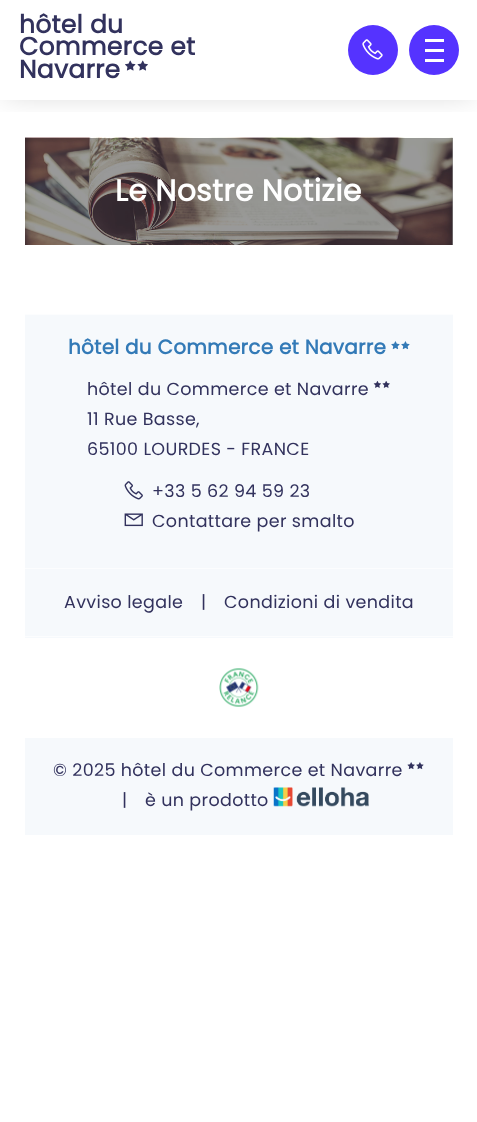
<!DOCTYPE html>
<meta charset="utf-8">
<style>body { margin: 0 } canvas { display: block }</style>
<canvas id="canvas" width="477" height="1122"></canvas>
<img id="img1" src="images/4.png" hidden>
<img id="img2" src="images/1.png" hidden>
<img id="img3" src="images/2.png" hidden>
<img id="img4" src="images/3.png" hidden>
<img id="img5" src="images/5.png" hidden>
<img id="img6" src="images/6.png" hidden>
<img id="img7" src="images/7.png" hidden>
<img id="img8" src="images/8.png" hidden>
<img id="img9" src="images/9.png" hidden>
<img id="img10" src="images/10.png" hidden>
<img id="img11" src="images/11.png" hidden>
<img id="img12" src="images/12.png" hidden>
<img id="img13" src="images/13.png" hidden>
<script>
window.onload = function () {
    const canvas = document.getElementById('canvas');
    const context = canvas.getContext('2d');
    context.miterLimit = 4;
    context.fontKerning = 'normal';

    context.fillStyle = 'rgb(255, 255, 255)';
    context.fillRect(0, 0, 477, 1122);
    context.fillStyle = 'rgb(153, 153, 153)';
    context.fillRect(452, 138, 1, 107);
    context.drawImage(document.getElementById('img1'), 25, 137, 428, 108);
    context.save();
    context.beginPath();
    context.rect(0, 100, 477, 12);
    context.clip();
    context.fillStyle = 'rgba(0, 0, 0, 0.17)';
    context.filter = 'blur(14px)';
    context.beginPath();
    context.rect(5, 5, 468, 90);
    context.fill();
    context.filter = 'none';
    context.restore();
    context.drawImage(document.getElementById('img2'), 125, 60, 11, 11);
    context.drawImage(document.getElementById('img3'), 137, 60, 11, 11);
    context.fillStyle = 'rgb(85, 51, 255)';
    context.beginPath();
    context.arc(373, 50, 25, 0, 2 * Math.PI);
    context.fill();
    context.drawImage(document.getElementById('img4'), 362, 39, 21, 21);
    context.beginPath();
    context.arc(434, 50, 25, 0, 2 * Math.PI);
    context.fill();
    context.fillStyle = 'rgb(255, 255, 255)';
    context.fillRect(425, 49, 19, 3);
    context.fillRect(425, 39, 19, 3);
    context.fillRect(425, 59, 19, 3);
    context.fillStyle = 'rgb(246, 249, 252)';
    context.fillRect(25, 315, 428, 253);
    context.fillStyle = 'rgb(252, 253, 254)';
    context.fillRect(25, 314, 428, 1);
    context.fillRect(25, 568, 428, 1);
    context.drawImage(document.getElementById('img5'), 391, 341, 9, 9);
    context.drawImage(document.getElementById('img5'), 401, 341, 9, 9);
    context.drawImage(document.getElementById('img6'), 373, 381, 8, 7);
    context.drawImage(document.getElementById('img7'), 382, 381, 8, 7);
    context.drawImage(document.getElementById('img8'), 124, 481, 19, 19);
    context.drawImage(document.getElementById('img9'), 124, 513, 19, 14);
    context.fillStyle = 'rgb(246, 249, 252)';
    context.fillRect(25, 569, 428, 69);
    context.fillStyle = 'rgb(252, 253, 254)';
    context.fillRect(25, 636, 428, 1);
    context.drawImage(document.getElementById('img10'), 219, 668, 40, 39);
    context.fillStyle = 'rgb(246, 249, 252)';
    context.fillRect(25, 738, 428, 97);
    context.drawImage(document.getElementById('img11'), 407, 762, 8, 8);
    context.drawImage(document.getElementById('img12'), 416, 762, 8, 8);
    context.drawImage(document.getElementById('img13'), 273, 787, 96, 20);
    context.letterSpacing = '0.25px';
    context.font = 'bold 25px Poppins';
    context.fillStyle = 'rgb(50, 50, 93)';
    context.fillText('hôtel du', 19, 33);
    context.fillText('Commerce et', 19, 55);
    context.fillText('Navarre', 19, 78);
    context.font = 'bold 30px Poppins';
    context.fillStyle = 'rgb(255, 255, 255)';
    context.fillText('Le Nostre Notizie', 115, 201);
    context.font = 'bold 20px Poppins';
    context.fillStyle = 'rgb(51, 122, 183)';
    context.fillText('hôtel du Commerce et Navarre', 68, 354);
    context.letterSpacing = '0.35px';
    context.font = '17.5px Poppins';
    context.fillStyle = 'rgb(50, 50, 93)';
    context.fillText('hôtel du Commerce et Navarre', 87, 395);
    context.fillText('11 Rue Basse,', 87, 425);
    context.fillText('65100 LOURDES - FRANCE', 87, 455);
    context.fillText('+33 5 62 94 59 23', 152, 497);
    context.fillText('Contattare per smalto', 152, 527);
    context.fillText('Avviso legale', 64, 608);
    context.fillText('|', 201, 608);
    context.fillText('Condizioni di vendita', 224, 608);
    context.fillText('© 2025 hôtel du Commerce et Navarre', 53, 776);
    context.fillText('|', 122, 806);
    context.fillText('è un prodotto', 145, 806);
};
</script>
